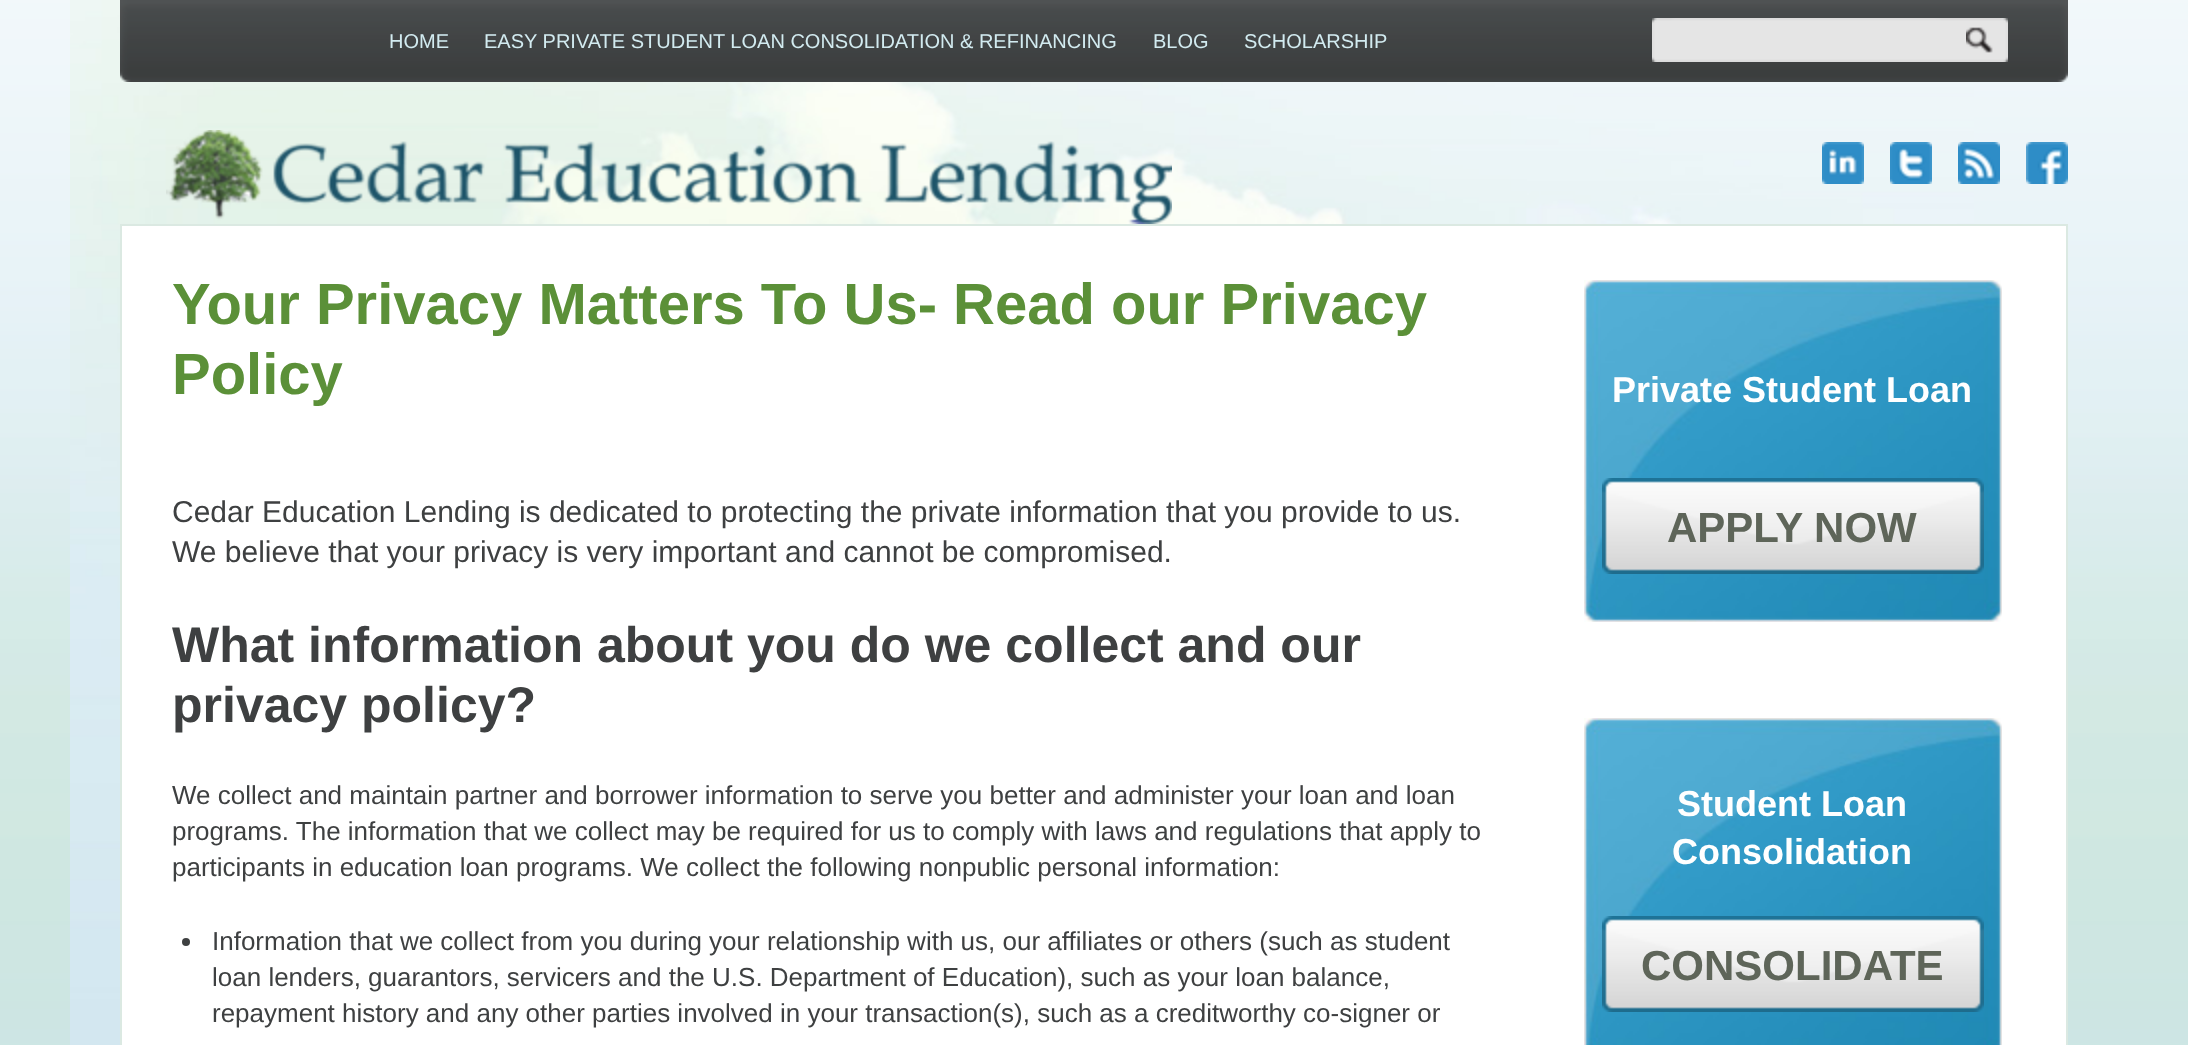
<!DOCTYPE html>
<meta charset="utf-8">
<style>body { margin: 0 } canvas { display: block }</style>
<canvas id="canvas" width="2188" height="1045"></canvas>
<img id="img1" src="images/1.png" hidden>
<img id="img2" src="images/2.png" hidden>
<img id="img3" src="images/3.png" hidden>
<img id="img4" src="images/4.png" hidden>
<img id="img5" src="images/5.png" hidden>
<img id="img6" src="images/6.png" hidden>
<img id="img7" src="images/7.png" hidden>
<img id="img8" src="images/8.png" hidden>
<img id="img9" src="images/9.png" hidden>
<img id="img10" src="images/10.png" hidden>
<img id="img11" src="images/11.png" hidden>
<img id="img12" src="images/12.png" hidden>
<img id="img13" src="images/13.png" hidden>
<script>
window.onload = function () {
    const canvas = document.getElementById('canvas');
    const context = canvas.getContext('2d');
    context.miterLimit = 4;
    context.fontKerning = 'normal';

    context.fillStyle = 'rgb(255, 255, 255)';
    context.fillRect(0, 0, 2188, 1045);
    context.drawImage(document.getElementById('img1'), 0, 0, 2188, 1045);
    context.drawImage(document.getElementById('img2'), 70, 0, 1904, 1045);
    context.drawImage(document.getElementById('img3'), 120, 0, 1948, 82);
    context.drawImage(document.getElementById('img4'), 1652, 18, 314, 44);
    context.drawImage(document.getElementById('img5'), 1966, 18, 42, 44);
    context.drawImage(document.getElementById('img6'), 166, 130, 1006, 94);
    context.drawImage(document.getElementById('img7'), 1822, 142, 42, 42);
    context.drawImage(document.getElementById('img8'), 1890, 142, 42, 42);
    context.drawImage(document.getElementById('img9'), 1958, 142, 42, 42);
    context.drawImage(document.getElementById('img10'), 2026, 142, 42, 42);
    context.beginPath();
    context.rect(121, 225, 1946, 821);
    context.fill();
    context.strokeStyle = 'rgb(219, 233, 226)';
    context.lineWidth = 2;
    context.stroke();
    context.fillStyle = 'rgb(62, 64, 65)';
    context.beginPath();
    context.arc(186, 942, 4, 0, 2 * Math.PI);
    context.fill();
    context.drawImage(document.getElementById('img11'), 1584, 280, 418, 342);
    context.drawImage(document.getElementById('img12'), 1602, 478, 382, 96);
    context.drawImage(document.getElementById('img13'), 1584, 718, 418, 327);
    context.drawImage(document.getElementById('img12'), 1602, 916, 382, 96);
    context.font = '20px Liberation Sans';
    context.fillStyle = 'rgb(210, 235, 240)';
    context.fillText('HOME', 389, 48);
    context.fillText('EASY PRIVATE STUDENT LOAN CONSOLIDATION & REFINANCING', 484, 48);
    context.fillText('BLOG', 1153, 48);
    context.fillText('SCHOLARSHIP', 1244, 48);
    context.font = 'bold 58px Liberation Sans';
    context.fillStyle = 'rgb(91, 144, 56)';
    context.fillText('Your Privacy Matters To Us- Read our Privacy', 172, 324);
    context.fillText('Policy', 172, 394);
    context.font = '30px Liberation Sans';
    context.fillStyle = 'rgb(62, 64, 65)';
    context.fillText('Cedar Education Lending is dedicated to protecting the private information that you provide to us.', 172, 522);
    context.fillText('We believe that your privacy is very important and cannot be compromised.', 172, 562);
    context.font = 'bold 50px Liberation Sans';
    context.fillText('What information about you do we collect and our', 172, 662);
    context.fillText('privacy policy?', 172, 722);
    context.font = '26px Liberation Sans';
    context.fillText('We collect and maintain partner and borrower information to serve you better and administer your loan and loan', 172, 804);
    context.fillText('programs. The information that we collect may be required for us to comply with laws and regulations that apply to', 172, 840);
    context.fillText('participants in education loan programs. We collect the following nonpublic personal information:', 172, 876);
    context.fillText('Information that we collect from you during your relationship with us, our affiliates or others (such as student', 212, 950);
    context.fillText('loan lenders, guarantors, servicers and the U.S. Department of Education), such as your loan balance,', 212, 986);
    context.fillText('repayment history and any other parties involved in your transaction(s), such as a creditworthy co-signer or', 212, 1022);
    context.font = 'bold 36px Liberation Sans';
    context.fillStyle = 'rgb(255, 255, 255)';
    context.fillText('Private Student Loan', 1612, 402);
    context.font = 'bold 42px Liberation Sans';
    context.fillStyle = 'rgb(94, 101, 89)';
    context.fillText('APPLY NOW', 1667, 542);
    context.font = 'bold 36px Liberation Sans';
    context.fillStyle = 'rgb(255, 255, 255)';
    context.fillText('Student Loan', 1677, 816);
    context.fillText('Consolidation', 1672, 864);
    context.font = 'bold 42px Liberation Sans';
    context.fillStyle = 'rgb(94, 101, 89)';
    context.fillText('CONSOLIDATE', 1641, 980);
};
</script>
